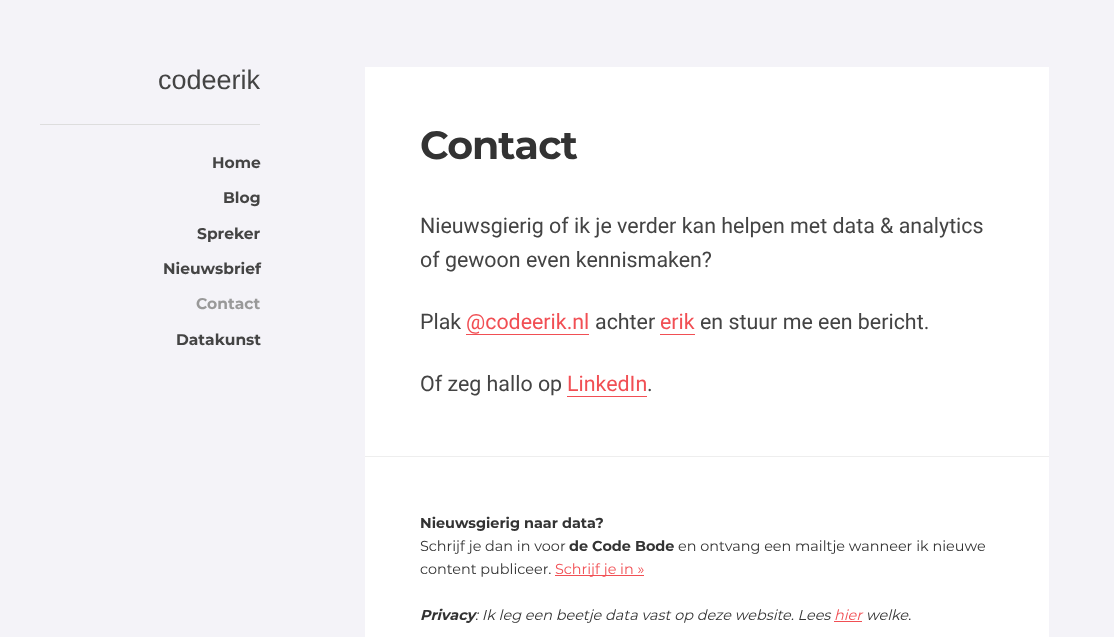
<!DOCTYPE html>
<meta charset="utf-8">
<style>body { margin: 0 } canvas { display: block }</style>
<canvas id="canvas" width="1114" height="637"></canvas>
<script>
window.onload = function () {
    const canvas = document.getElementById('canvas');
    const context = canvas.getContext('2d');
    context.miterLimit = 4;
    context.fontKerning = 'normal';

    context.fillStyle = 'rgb(244, 243, 248)';
    context.fillRect(0, 0, 1114, 637);
    context.fillStyle = 'rgb(221, 221, 221)';
    context.fillRect(40, 124, 220, 1);
    context.fillStyle = 'rgb(255, 255, 255)';
    context.fillRect(365, 67, 684, 570);
    context.fillStyle = 'rgb(241, 79, 84)';
    context.fillRect(466, 334, 123, 1);
    context.fillRect(660, 334, 35, 1);
    context.fillRect(567, 396, 80, 1);
    context.fillStyle = 'rgb(238, 238, 238)';
    context.fillRect(365, 456, 684, 1);
    context.fillStyle = 'rgb(241, 79, 84)';
    context.fillRect(555, 575, 89, 1);
    context.fillRect(834, 621, 28, 1);
    context.font = '27px Liberation Sans';
    context.fillStyle = 'rgb(68, 68, 68)';
    context.fillText('codeerik', 158, 89);
    context.font = 'bold 15.5px Montserrat';
    context.fillText('Home', 212, 168);
    context.fillText('Blog', 223, 203);
    context.fillText('Spreker', 197, 239);
    context.fillText('Nieuwsbrief', 163, 274);
    context.fillStyle = 'rgb(153, 153, 153)';
    context.fillText('Contact', 196, 309);
    context.fillStyle = 'rgb(68, 68, 68)';
    context.fillText('Datakunst', 176, 345);
    context.letterSpacing = '-1px';
    context.font = 'bold 39.5px Montserrat';
    context.fillStyle = 'rgb(51, 51, 51)';
    context.fillText('Contact', 420, 159);
    context.letterSpacing = '0px';
    context.font = '21.4px Roboto';
    context.fillStyle = 'rgb(68, 68, 68)';
    context.fillText('Nieuwsgierig of ik je verder kan helpen met data & analytics', 420, 233);
    context.fillText('of gewoon even kennismaken?', 420, 267);
    context.fillText('Plak', 420, 329);
    context.fillStyle = 'rgb(241, 79, 84)';
    context.fillText('@codeerik.nl', 466, 329);
    context.fillStyle = 'rgb(68, 68, 68)';
    context.fillText('achter', 595, 329);
    context.fillStyle = 'rgb(241, 79, 84)';
    context.fillText('erik', 660, 329);
    context.fillStyle = 'rgb(68, 68, 68)';
    context.fillText('en stuur me een bericht.', 700, 329);
    context.fillText('Of zeg hallo op', 420, 391);
    context.fillStyle = 'rgb(241, 79, 84)';
    context.fillText('LinkedIn', 567, 391);
    context.fillStyle = 'rgb(68, 68, 68)';
    context.fillText('.', 647, 391);
    context.font = 'bold 14.4px Montserrat';
    context.fillStyle = 'rgb(51, 51, 51)';
    context.fillText('Nieuwsgierig naar data?', 420, 528);
    context.font = '14.4px Montserrat';
    context.fillText('Schrijf je dan in voor', 420, 551);
    context.font = 'bold 14.4px Montserrat';
    context.fillText('de Code Bode', 569, 551);
    context.font = '14.4px Montserrat';
    context.fillText('en ontvang een mailtje wanneer ik nieuwe', 678, 551);
    context.fillText('content publiceer.', 420, 574);
    context.fillStyle = 'rgb(241, 79, 84)';
    context.fillText('Schrijf je in »', 555, 574);
    context.font = 'italic bold 14.4px Montserrat';
    context.fillStyle = 'rgb(51, 51, 51)';
    context.fillText('Privacy', 420, 620);
    context.font = 'italic 14.4px Montserrat';
    context.fillText(': Ik leg een beetje data vast op deze website. Lees', 475, 620);
    context.fillStyle = 'rgb(241, 79, 84)';
    context.fillText('hier', 834, 620);
    context.fillStyle = 'rgb(51, 51, 51)';
    context.fillText('welke.', 866, 620);
};
</script>
